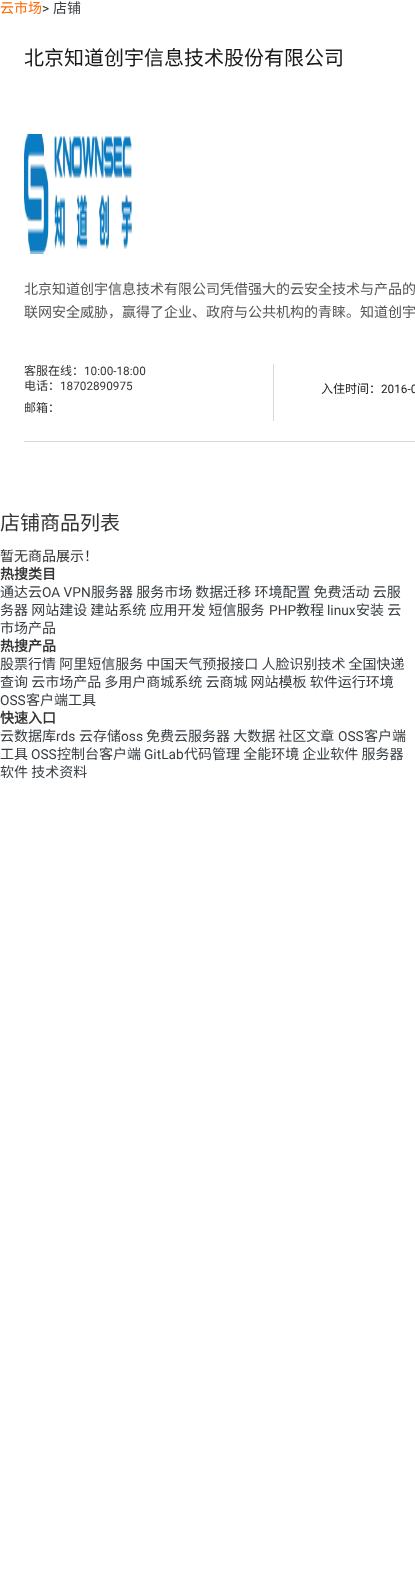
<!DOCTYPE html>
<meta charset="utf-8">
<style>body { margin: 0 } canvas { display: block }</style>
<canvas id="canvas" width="415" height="1584"></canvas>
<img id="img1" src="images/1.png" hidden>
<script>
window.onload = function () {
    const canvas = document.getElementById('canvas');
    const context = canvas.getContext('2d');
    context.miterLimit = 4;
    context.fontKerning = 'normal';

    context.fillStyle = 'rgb(255, 255, 255)';
    context.fillRect(0, 0, 415, 1584);
    context.drawImage(document.getElementById('img1'), 24, 134, 108, 120);
    context.fillStyle = 'rgb(216, 216, 216)';
    context.fillRect(24, 441, 391, 1);
    context.fillRect(273, 364, 1, 57);
    context.font = '14px Noto Sans CJK SC';
    context.fillStyle = 'rgb(255, 106, 0)';
    context.fillText('云市场', 0, 13);
    context.font = '14px Roboto';
    context.fillStyle = 'rgb(51, 51, 51)';
    context.fillText('>', 42, 13);
    context.font = '14px Noto Sans CJK SC';
    context.fillStyle = 'rgb(55, 61, 65)';
    context.fillText('店铺', 53, 13);
    context.font = '20px Noto Sans CJK SC';
    context.fillStyle = 'rgb(24, 24, 24)';
    context.fillText('北京知道创宇信息技术股份有限公司', 24, 65);
    context.font = '14px Noto Sans CJK SC';
    context.fillStyle = 'rgb(85, 85, 85)';
    context.fillText('北京知道创宇信息技术有限公司凭借强大的云安全技术与产品的', 24, 294);
    context.fillText('联网安全威胁，赢得了企业、政府与公共机构的青睐。知道创宇', 24, 317);
    context.font = '12px Noto Sans CJK SC';
    context.fillStyle = 'rgb(51, 51, 51)';
    context.fillText('客服在线：', 24, 375);
    context.font = '12px Roboto';
    context.fillText('10:00-18:00', 84, 375);
    context.font = '12px Noto Sans CJK SC';
    context.fillText('电话：', 24, 390);
    context.font = '12px Roboto';
    context.fillText('18702890975', 60, 390);
    context.font = '12px Noto Sans CJK SC';
    context.fillText('邮箱：', 24, 412);
    context.fillStyle = 'rgb(24, 24, 24)';
    context.fillText('入住时间：', 321, 393);
    context.font = '12px Roboto';
    context.fillText('2016-0', 381, 393);
    context.font = '20px Noto Sans CJK SC';
    context.fillStyle = 'rgb(51, 51, 51)';
    context.fillText('店铺商品列表', 0, 530);
    context.font = '14px Noto Sans CJK SC';
    context.fillText('暂无商品展示！', 0, 561);
    context.font = 'bold 14px Noto Sans CJK SC';
    context.fillText('热搜类目', 0, 579);
    context.font = '14px Noto Sans CJK SC';
    context.fillStyle = 'rgb(55, 61, 65)';
    context.fillText('通达云', 0, 597);
    context.font = '14px Roboto';
    context.fillText('OA VPN', 42, 597);
    context.font = '14px Noto Sans CJK SC';
    context.fillText('服务器 服务市场 数据迁移 环境配置 免费活动 云服', 91, 597);
    context.fillText('务器 网站建设 建站系统 应用开发 短信服务', 0, 615);
    context.font = '14px Roboto';
    context.fillText('PHP', 269, 615);
    context.font = '14px Noto Sans CJK SC';
    context.fillText('教程', 296, 615);
    context.font = '14px Roboto';
    context.fillText('linux', 327, 615);
    context.font = '14px Noto Sans CJK SC';
    context.fillText('安装 云', 356, 615);
    context.fillText('市场产品', 0, 633);
    context.font = 'bold 14px Noto Sans CJK SC';
    context.fillStyle = 'rgb(51, 51, 51)';
    context.fillText('热搜产品', 0, 651);
    context.font = '14px Noto Sans CJK SC';
    context.fillStyle = 'rgb(55, 61, 65)';
    context.fillText('股票行情 阿里短信服务 中国天气预报接口 人脸识别技术 全国快递', 0, 669);
    context.fillText('查询 云市场产品 多用户商城系统 云商城 网站模板 软件运行环境', 0, 687);
    context.font = '14px Roboto';
    context.fillText('OSS', 0, 705);
    context.font = '14px Noto Sans CJK SC';
    context.fillText('客户端工具', 26, 705);
    context.font = 'bold 14px Noto Sans CJK SC';
    context.fillStyle = 'rgb(51, 51, 51)';
    context.fillText('快速入口', 0, 723);
    context.font = '14px Noto Sans CJK SC';
    context.fillStyle = 'rgb(55, 61, 65)';
    context.fillText('云数据库', 0, 741);
    context.font = '14px Roboto';
    context.fillText('rds', 56, 741);
    context.font = '14px Noto Sans CJK SC';
    context.fillText('云存储', 79, 741);
    context.font = '14px Roboto';
    context.fillText('oss', 121, 741);
    context.font = '14px Noto Sans CJK SC';
    context.fillText('免费云服务器 大数据 社区文章', 146, 741);
    context.font = '14px Roboto';
    context.fillText('OSS', 338, 741);
    context.font = '14px Noto Sans CJK SC';
    context.fillText('客户端', 364, 741);
    context.fillText('工具', 0, 759);
    context.font = '14px Roboto';
    context.fillText('OSS', 31, 759);
    context.font = '14px Noto Sans CJK SC';
    context.fillText('控制台客户端', 57, 759);
    context.font = '14px Roboto';
    context.fillText('GitLab', 144, 759);
    context.font = '14px Noto Sans CJK SC';
    context.fillText('代码管理 全能环境 企业软件 服务器', 184, 759);
    context.fillText('软件 技术资料', 0, 777);
};
</script>
